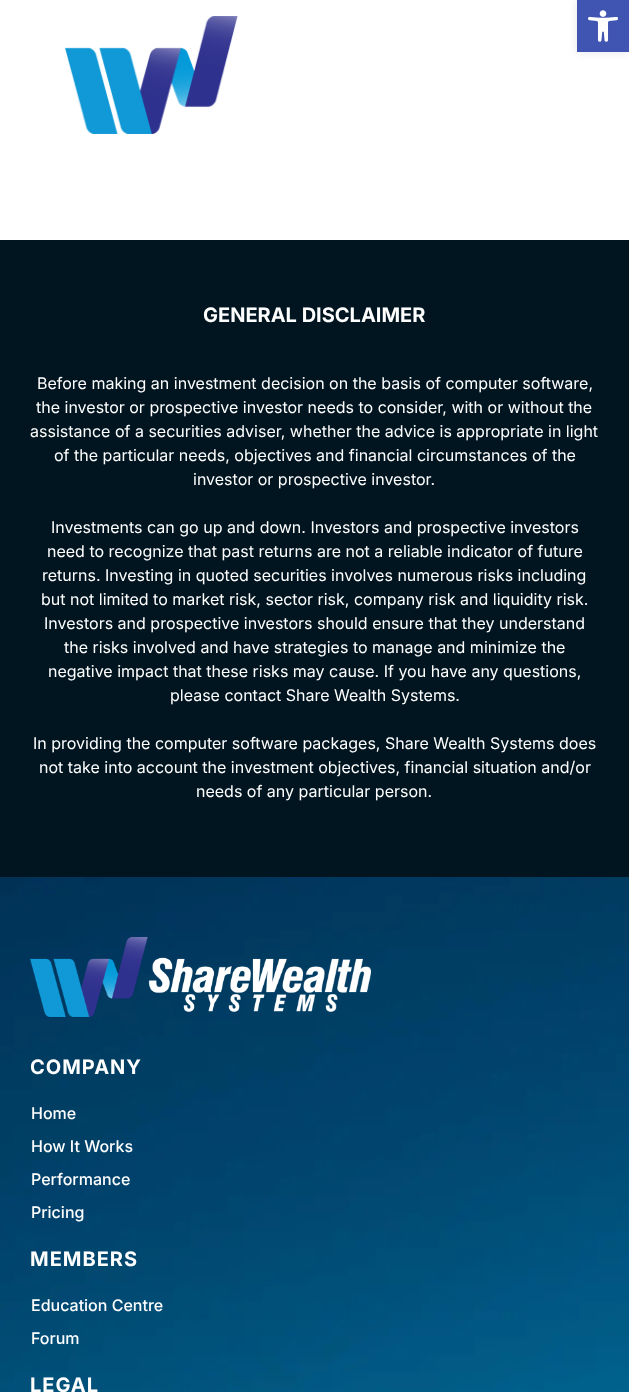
<!DOCTYPE html>
<meta charset="utf-8">
<style>body { margin: 0 } canvas { display: block }</style>
<canvas id="canvas" width="629" height="1392"></canvas>
<img id="img1" src="images/1.png" hidden>
<img id="img2" src="images/2.png" hidden>
<img id="img3" src="images/3.png" hidden>
<img id="img4" src="images/4.png" hidden>
<script>
window.onload = function () {
    const canvas = document.getElementById('canvas');
    const context = canvas.getContext('2d');
    context.miterLimit = 4;
    context.fontKerning = 'normal';

    context.fillStyle = 'rgb(255, 255, 255)';
    context.fillRect(0, 0, 629, 1392);
    context.drawImage(document.getElementById('img1'), 65, 16, 173, 118);
    context.fillStyle = 'rgba(0, 0, 0, 0.1)';
    context.filter = 'blur(5px)';
    context.beginPath();
    context.rect(577, 0, 52, 52);
    context.fill();
    context.filter = 'none';
    context.fillStyle = 'rgb(64, 84, 178)';
    context.fillRect(577, 0, 52, 52);
    context.drawImage(document.getElementById('img2'), 588, 10, 30, 32);
    context.fillStyle = 'rgb(1, 21, 32)';
    context.fillRect(0, 240, 629, 637);
    context.drawImage(document.getElementById('img3'), 0, 877, 629, 515);
    context.drawImage(document.getElementById('img4'), 30, 937, 341, 80);
    context.font = 'bold 20px Inter';
    context.fillStyle = 'rgb(255, 255, 255)';
    context.fillText('GENERAL DISCLAIMER', 203, 322);
    context.font = '16px Inter';
    context.fillText('Before making an investment decision on the basis of computer software,', 37, 389);
    context.fillText('the investor or prospective investor needs to consider, with or without the', 36, 413);
    context.fillText('assistance of a securities adviser, whether the advice is appropriate in light', 30, 437);
    context.fillText('of the particular needs, objectives and financial circumstances of the', 54, 461);
    context.fillText('investor or prospective investor.', 193, 485);
    context.fillText('Investments can go up and down. Investors and prospective investors', 51, 533);
    context.fillText('need to recognize that past returns are not a reliable indicator of future', 47, 557);
    context.fillText('returns. Investing in quoted securities involves numerous risks including', 42, 581);
    context.fillText('but not limited to market risk, sector risk, company risk and liquidity risk.', 41, 605);
    context.fillText('Investors and prospective investors should ensure that they understand', 44, 629);
    context.fillText('the risks involved and have strategies to manage and minimize the', 64, 653);
    context.fillText('negative impact that these risks may cause. If you have any questions,', 48, 677);
    context.fillText('please contact Share Wealth Systems.', 170, 701);
    context.fillText('In providing the computer software packages, Share Wealth Systems does', 33, 749);
    context.fillText('not take into account the investment objectives, financial situation and/or', 39, 773);
    context.fillText('needs of any particular person.', 196, 797);
    context.letterSpacing = '1px';
    context.font = 'bold 20px Inter';
    context.fillText('COMPANY', 30, 1074);
    context.letterSpacing = '0px';
    context.font = '500 16px Inter';
    context.fillText('Home', 31, 1119);
    context.fillText('How It Works', 31, 1152);
    context.fillText('Performance', 31, 1185);
    context.fillText('Pricing', 31, 1218);
    context.letterSpacing = '1px';
    context.font = 'bold 20px Inter';
    context.fillText('MEMBERS', 30, 1266);
    context.letterSpacing = '0px';
    context.font = '500 16px Inter';
    context.fillText('Education Centre', 31, 1311);
    context.fillText('Forum', 31, 1344);
    context.letterSpacing = '1px';
    context.font = 'bold 20px Inter';
    context.fillText('LEGAL', 30, 1392);
};
</script>
